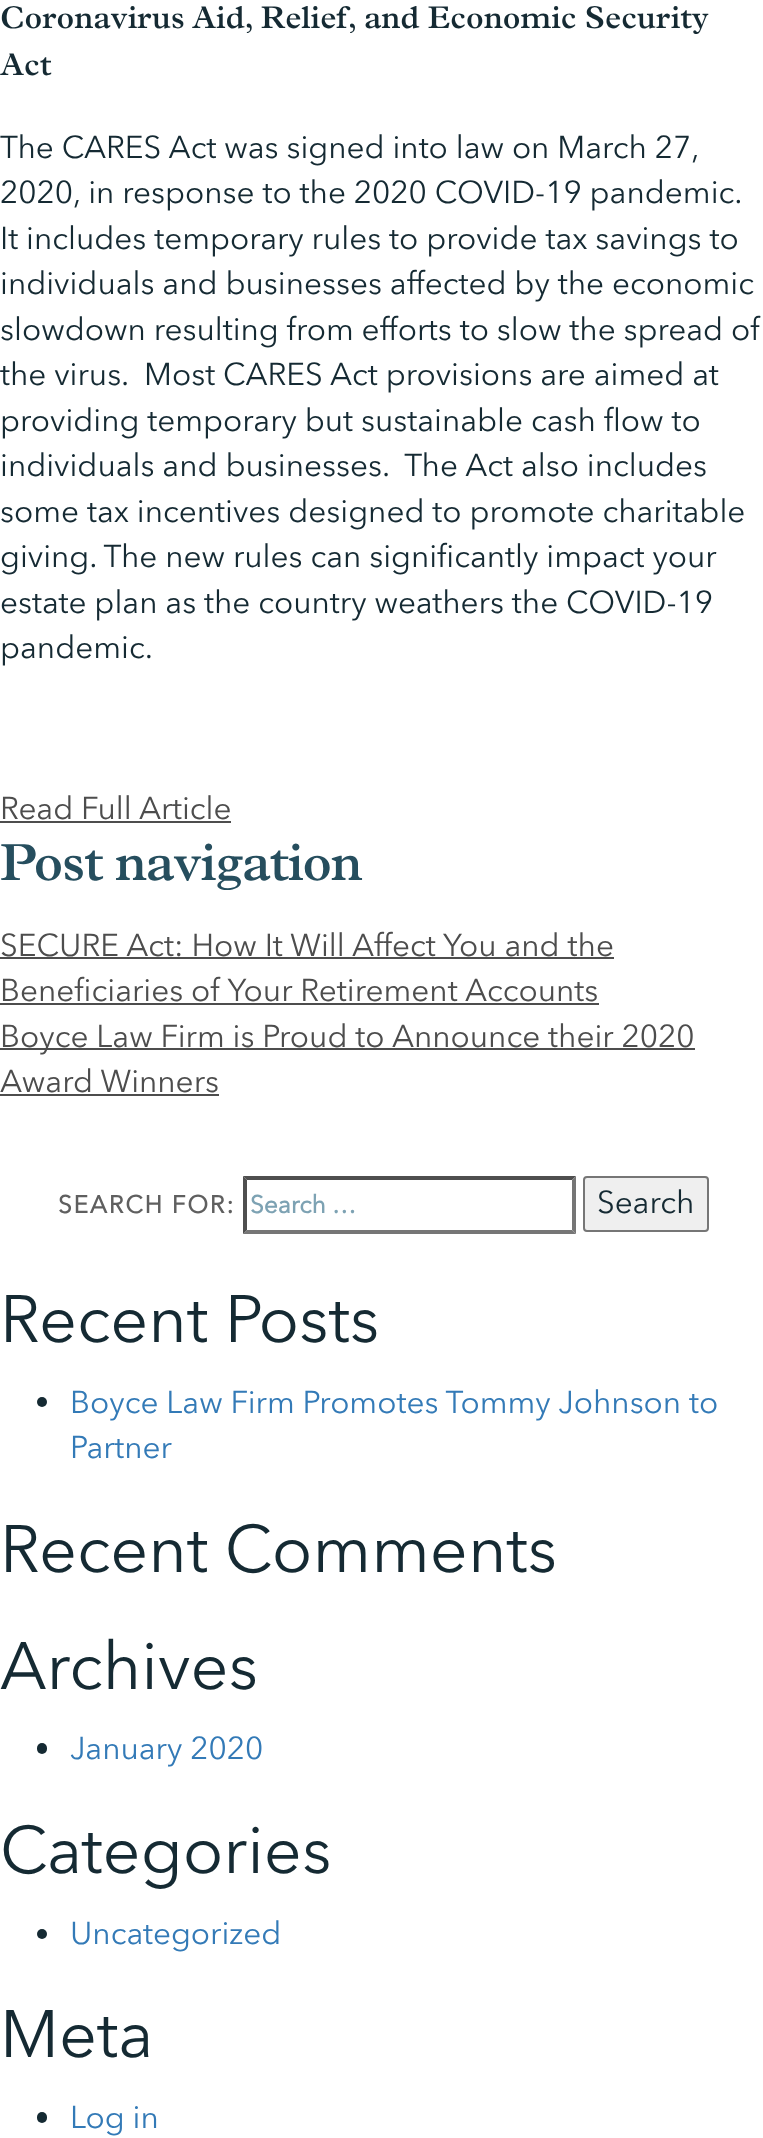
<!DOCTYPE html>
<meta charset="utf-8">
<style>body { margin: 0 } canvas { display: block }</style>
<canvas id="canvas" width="763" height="2138"></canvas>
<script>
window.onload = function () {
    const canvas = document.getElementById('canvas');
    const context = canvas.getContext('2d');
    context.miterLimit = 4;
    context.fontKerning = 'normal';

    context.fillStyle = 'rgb(255, 255, 255)';
    context.fillRect(0, 0, 763, 2138);
    context.fillStyle = 'rgb(77, 77, 77)';
    context.fillRect(0, 821, 231, 2);
    context.fillRect(0, 957, 614, 2);
    context.fillRect(0, 1003, 599, 2);
    context.fillRect(0, 1048, 695, 2);
    context.fillRect(0, 1094, 219, 2);
    context.fillStyle = 'rgb(79, 79, 79)';
    context.beginPath();
    context.moveTo(243, 1176);
    context.lineTo(576, 1176);
    context.lineTo(572, 1180);
    context.lineTo(247, 1180);
    context.closePath();
    context.fill();
    context.fillStyle = 'rgb(118, 118, 118)';
    context.beginPath();
    context.moveTo(576, 1176);
    context.lineTo(576, 1234);
    context.lineTo(572, 1230);
    context.lineTo(572, 1180);
    context.closePath();
    context.fill();
    context.beginPath();
    context.moveTo(576, 1234);
    context.lineTo(243, 1234);
    context.lineTo(247, 1230);
    context.lineTo(572, 1230);
    context.closePath();
    context.fill();
    context.fillStyle = 'rgb(79, 79, 79)';
    context.beginPath();
    context.moveTo(243, 1234);
    context.lineTo(243, 1176);
    context.lineTo(247, 1180);
    context.lineTo(247, 1230);
    context.closePath();
    context.fill();
    context.fillStyle = 'rgb(239, 239, 239)';
    context.beginPath();
    context.roundRect(584, 1177, 124, 54, 3);
    context.fill();
    context.strokeStyle = 'rgb(118, 118, 118)';
    context.lineWidth = 2;
    context.stroke();
    context.fillStyle = 'rgb(21, 42, 51)';
    context.beginPath();
    context.arc(42, 1402, 5, 0, 2 * Math.PI);
    context.fill();
    context.beginPath();
    context.roundRect(37, 1743, 10, 11, 5);
    context.fill();
    context.beginPath();
    context.arc(42, 1934, 5, 0, 2 * Math.PI);
    context.fill();
    context.beginPath();
    context.roundRect(37, 2112, 10, 11, 5);
    context.fill();
    context.font = '600 31.5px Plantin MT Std';
    context.fillText('Coronavirus Aid, Relief, and Economic Security', 0, 28);
    context.fillText('Act', 0, 75);
    context.font = '31.5px Avenir Next';
    context.fillText('The CARES Act was signed into law on March 27,', 0, 158);
    context.fillText('2020, in response to the 2020 COVID-19 pandemic.', 0, 203);
    context.fillText('It includes temporary rules to provide tax savings to', 0, 249);
    context.fillText('individuals and businesses affected by the economic', 0, 294);
    context.fillText('slowdown resulting from efforts to slow the spread of', 0, 340);
    context.fillText('the virus.  Most CARES Act provisions are aimed at', 0, 385);
    context.fillText('providing temporary but sustainable cash flow to', 0, 431);
    context.fillText('individuals and businesses.  The Act also includes', 0, 476);
    context.fillText('some tax incentives designed to promote charitable', 0, 522);
    context.fillText('giving. The new rules can significantly impact your', 0, 567);
    context.fillText('estate plan as the country weathers the COVID-19', 0, 613);
    context.fillText('pandemic.', 0, 658);
    context.fillStyle = 'rgb(77, 77, 77)';
    context.fillText('Read Full Article', 0, 819);
    context.letterSpacing = '-1.25px';
    context.font = '600 52.5px Plantin MT Std';
    context.fillStyle = 'rgb(38, 78, 94)';
    context.fillText('Post navigation', 0, 880);
    context.letterSpacing = '0px';
    context.font = '31.5px Avenir Next';
    context.fillStyle = 'rgb(77, 77, 77)';
    context.fillText('SECURE Act: How It Will Affect You and the', 0, 956);
    context.fillText('Beneficiaries of Your Retirement Accounts', 0, 1001);
    context.fillText('Boyce Law Firm is Proud to Announce their 2020', 0, 1047);
    context.fillText('Award Winners', 0, 1092);
    context.letterSpacing = '1.75px';
    context.font = 'bold 24.5px Avenir Next';
    context.fillStyle = 'rgb(95, 95, 95)';
    context.fillText('SEARCH FOR:', 58, 1213);
    context.letterSpacing = '0px';
    context.fillStyle = 'rgb(125, 162, 179)';
    context.fillText('Search …', 250, 1213);
    context.font = '31.5px Avenir Next';
    context.fillStyle = 'rgb(21, 42, 51)';
    context.fillText('Search', 597, 1213);
    context.font = '66.5px Avenir Next';
    context.fillText('Recent Posts', 0, 1342);
    context.font = '31.5px Avenir Next';
    context.fillStyle = 'rgb(51, 122, 183)';
    context.fillText('Boyce Law Firm Promotes Tommy Johnson to', 70, 1413);
    context.fillText('Partner', 70, 1458);
    context.font = '66.5px Avenir Next';
    context.fillStyle = 'rgb(21, 42, 51)';
    context.fillText('Recent Comments', 0, 1572);
    context.fillText('Archives', 0, 1689);
    context.font = '31.5px Avenir Next';
    context.fillStyle = 'rgb(51, 122, 183)';
    context.fillText('January 2020', 70, 1759);
    context.font = '66.5px Avenir Next';
    context.fillStyle = 'rgb(21, 42, 51)';
    context.fillText('Categories', 0, 1873);
    context.font = '31.5px Avenir Next';
    context.fillStyle = 'rgb(51, 122, 183)';
    context.fillText('Uncategorized', 70, 1944);
    context.font = '66.5px Avenir Next';
    context.fillStyle = 'rgb(21, 42, 51)';
    context.fillText('Meta', 0, 2057);
    context.font = '31.5px Avenir Next';
    context.fillStyle = 'rgb(51, 122, 183)';
    context.fillText('Log in', 70, 2128);
};
</script>
